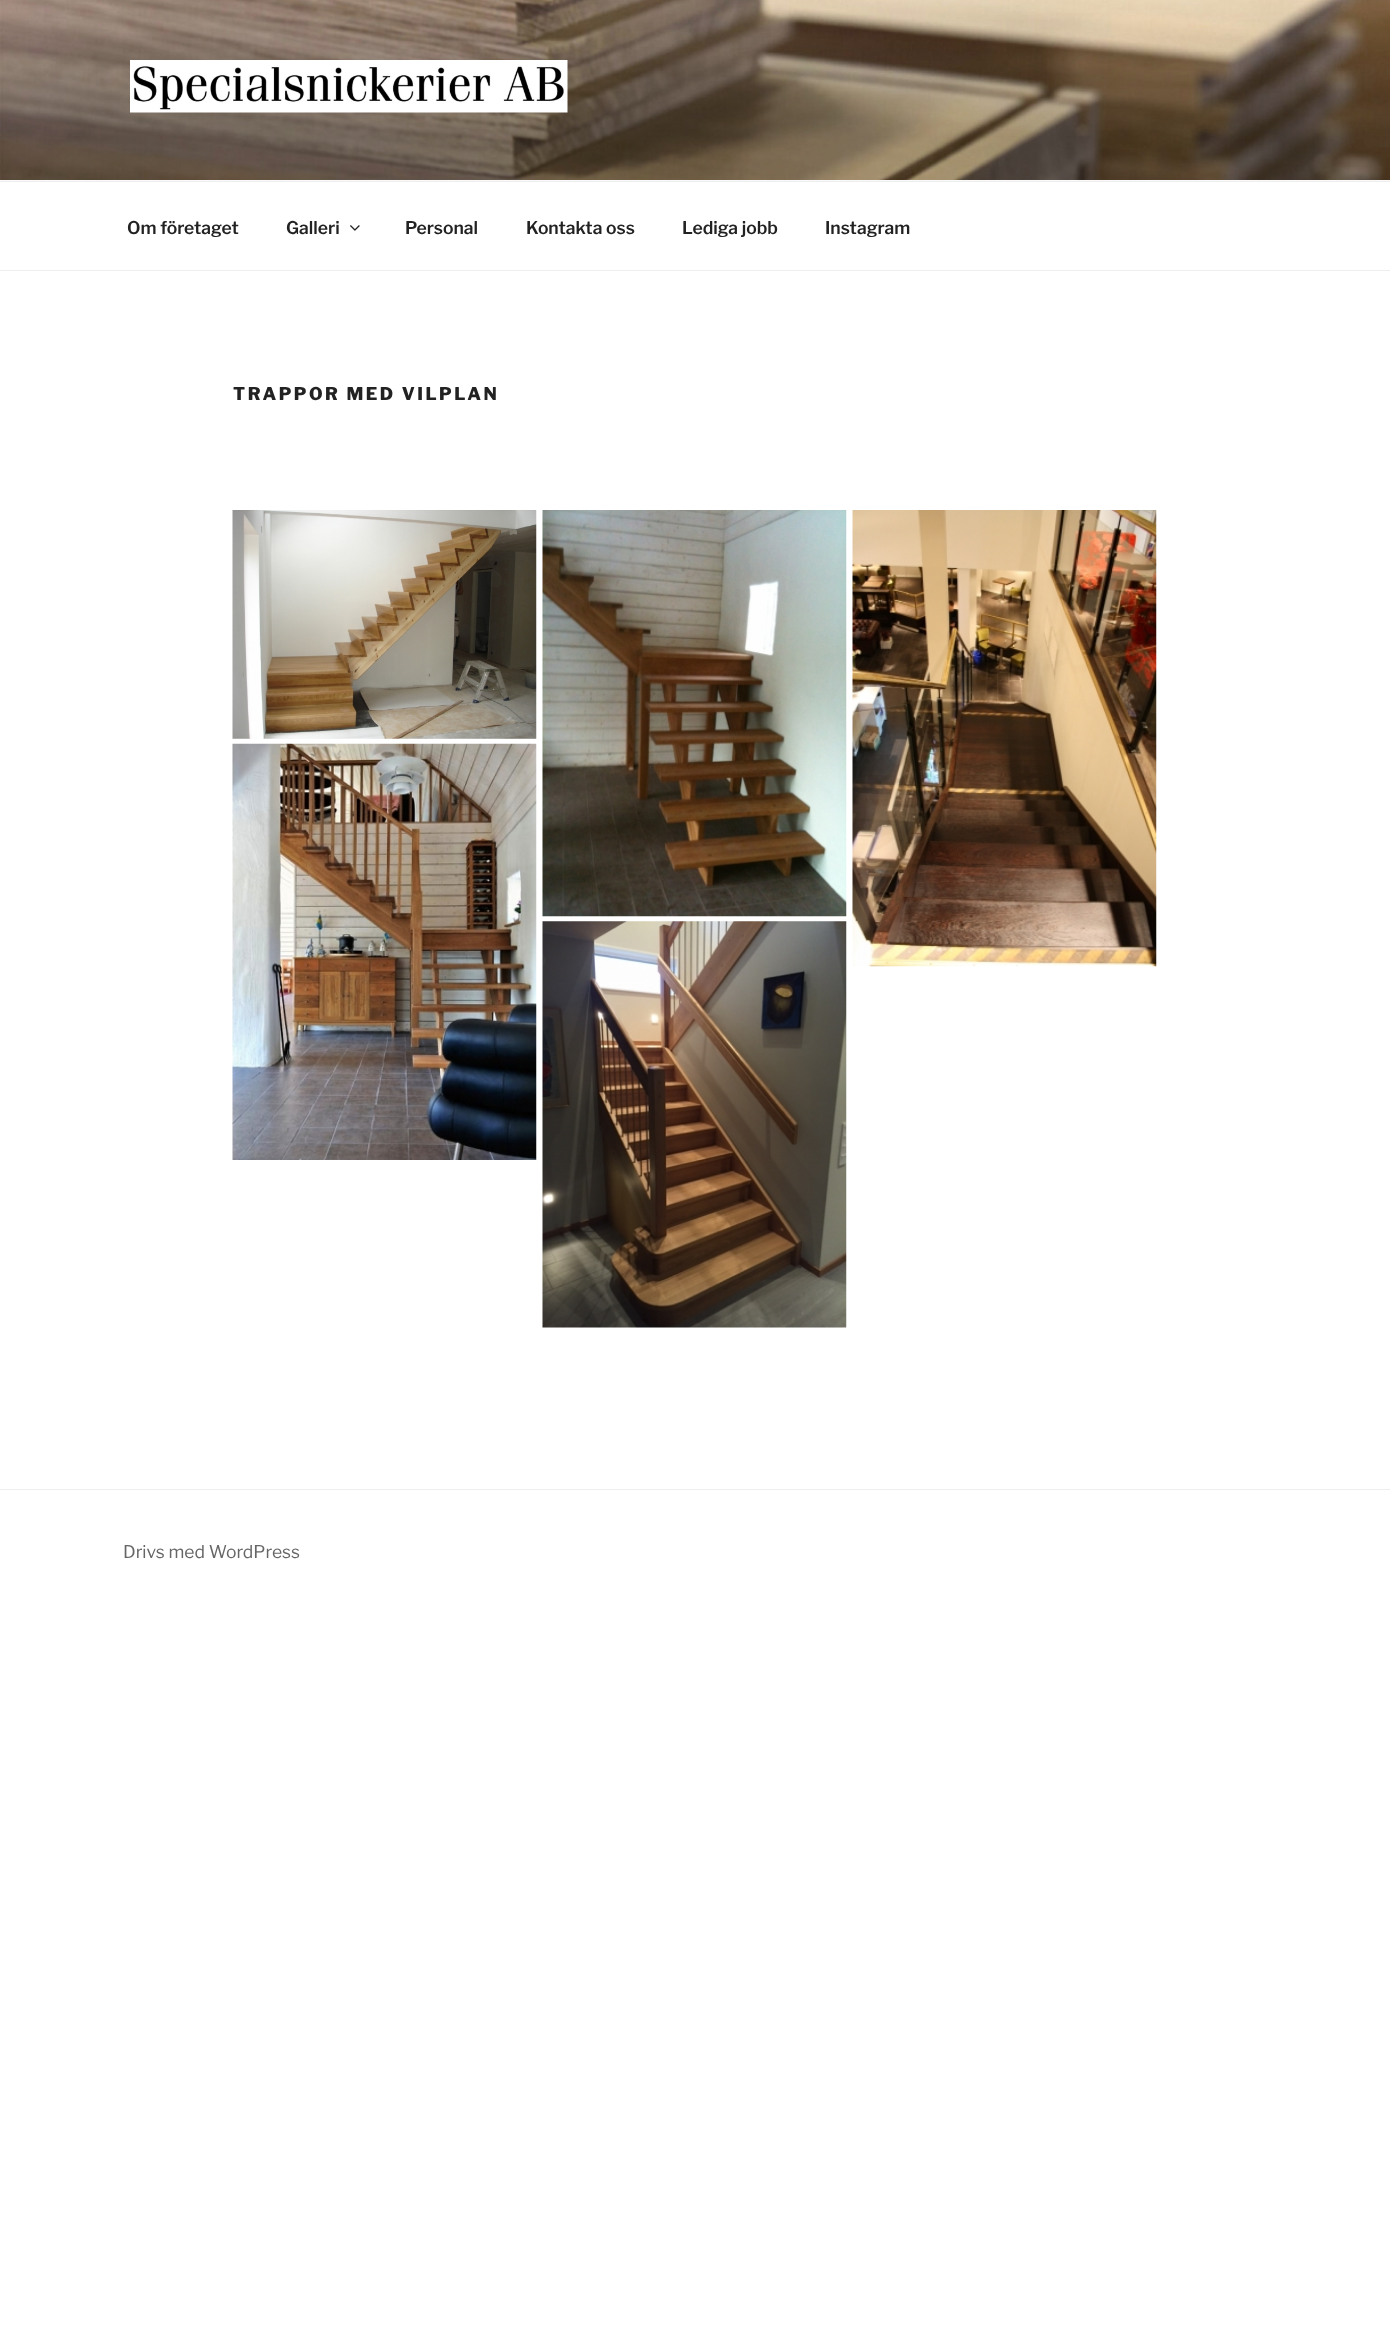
<!DOCTYPE html>
<meta charset="utf-8">
<style>body { margin: 0 } canvas { display: block }</style>
<canvas id="canvas" width="1390" height="2326"></canvas>
<img id="img1" src="images/1.png" hidden>
<img id="img2" src="images/2.png" hidden>
<img id="img3" src="images/3.png" hidden>
<img id="img4" src="images/4.png" hidden>
<img id="img5" src="images/5.png" hidden>
<img id="img6" src="images/6.png" hidden>
<img id="img7" src="images/7.png" hidden>
<img id="img8" src="images/8.png" hidden>
<script>
window.onload = function () {
    const canvas = document.getElementById('canvas');
    const context = canvas.getContext('2d');
    context.miterLimit = 4;
    context.fontKerning = 'normal';

    context.fillStyle = 'rgb(255, 255, 255)';
    context.fillRect(0, 0, 1390, 2326);
    context.fillStyle = 'rgb(250, 250, 250)';
    context.fillRect(0, 180, 1390, 1);
    context.drawImage(document.getElementById('img1'), 0, 0, 1390, 180);
    context.drawImage(document.getElementById('img2'), 130, 60, 438, 53);
    context.fillStyle = 'rgb(238, 238, 238)';
    context.fillRect(0, 181, 1390, 1);
    context.fillRect(0, 270, 1390, 1);
    context.drawImage(document.getElementById('img3'), 350, 225, 10, 6);
    context.drawImage(document.getElementById('img4'), 232, 510, 305, 229);
    context.drawImage(document.getElementById('img5'), 542, 510, 305, 407);
    context.drawImage(document.getElementById('img6'), 852, 510, 305, 457);
    context.drawImage(document.getElementById('img7'), 232, 743, 305, 417);
    context.drawImage(document.getElementById('img8'), 542, 921, 305, 407);
    context.fillRect(0, 1489, 1390, 1);
    context.font = '100 17.5px "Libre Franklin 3"';
    context.fillStyle = 'rgb(34, 34, 34)';
    context.fillText('Om företaget', 127, 234);
    context.fillText('Galleri', 286, 234);
    context.fillText('Personal', 405, 234);
    context.fillText('Kontakta oss', 526, 234);
    context.fillText('Lediga jobb', 682, 234);
    context.fillText('Instagram', 825, 234);
    context.letterSpacing = '2.5px';
    context.font = '100 17.5px "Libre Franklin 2"';
    context.fillText('TRAPPOR MED VILPLAN', 233, 400);
    context.letterSpacing = '0px';
    context.font = '100 17.5px Libre Franklin';
    context.fillStyle = 'rgb(102, 102, 102)';
    context.fillText('Drivs med WordPress', 123, 1558);
};
</script>
